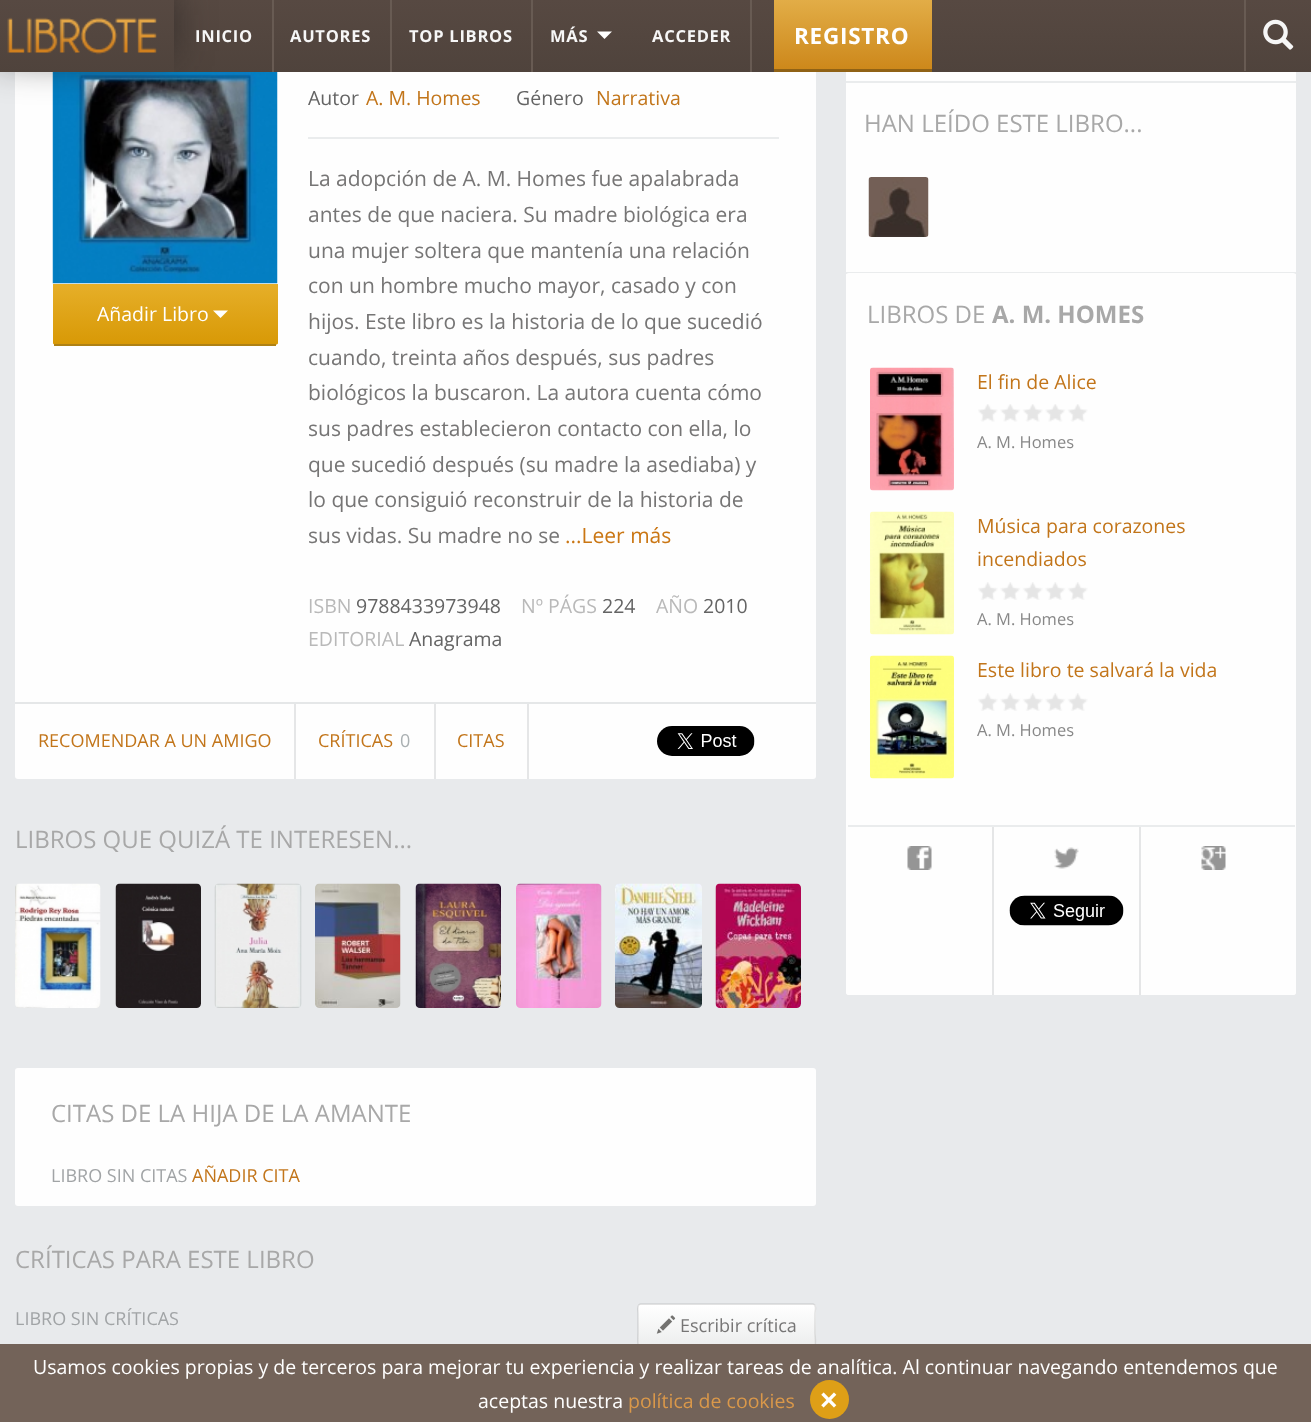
<!DOCTYPE html>
<meta charset="utf-8">
<style>body { margin: 0 } canvas { display: block }</style>
<canvas id="canvas" width="1311" height="1422"></canvas>
<img id="img1" src="images/3.png" hidden>
<img id="img2" src="images/1.png" hidden>
<img id="img3" src="images/2.png" hidden>
<img id="img4" src="images/4.png" hidden>
<img id="img5" src="images/5.png" hidden>
<img id="img6" src="images/6.png" hidden>
<img id="img7" src="images/7.png" hidden>
<img id="img8" src="images/8.png" hidden>
<img id="img9" src="images/9.png" hidden>
<img id="img10" src="images/10.png" hidden>
<img id="img11" src="images/11.png" hidden>
<img id="img12" src="images/12.png" hidden>
<img id="img13" src="images/13.png" hidden>
<img id="img14" src="images/14.png" hidden>
<img id="img15" src="images/15.png" hidden>
<img id="img16" src="images/16.png" hidden>
<img id="img17" src="images/17.png" hidden>
<img id="img18" src="images/18.png" hidden>
<img id="img19" src="images/19.png" hidden>
<img id="img20" src="images/20.png" hidden>
<img id="img21" src="images/21.png" hidden>
<img id="img22" src="images/22.png" hidden>
<img id="img23" src="images/23.png" hidden>
<img id="img24" src="images/24.png" hidden>
<script>
window.onload = function () {
    const canvas = document.getElementById('canvas');
    const context = canvas.getContext('2d');
    context.miterLimit = 4;
    context.fontKerning = 'normal';
    let gradient;

    context.fillStyle = 'rgb(232, 234, 236)';
    context.fillRect(0, 0, 1311, 1422);
    context.fillStyle = 'rgb(254, 254, 254)';
    context.beginPath();
    context.roundRect(15, -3, 801, 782, 3);
    context.fill();
    context.beginPath();
    context.roundRect(846, -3, 450, 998, 3);
    context.fill();
    gradient = context.createLinearGradient(656, 0, 656, 72);
    gradient.addColorStop(0, 'rgb(87, 73, 66)');
    gradient.addColorStop(1, 'rgb(79, 67, 60)');
    context.fillStyle = gradient;
    context.fillRect(0, 0, 1311, 72);
    context.drawImage(document.getElementById('img1'), 52, 72, 226, 212);
    context.save();
    context.beginPath();
    context.moveTo(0, 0);
    context.lineTo(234, 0);
    context.lineTo(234, 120);
    context.lineTo(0, 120);
    context.closePath();
    context.moveTo(-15, 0);
    context.lineTo(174, 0);
    context.lineTo(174, 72);
    context.lineTo(-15, 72);
    context.closePath();
    context.clip('evenodd');
    context.fillStyle = 'rgb(29, 28, 28)';
    context.filter = 'blur(22.5px)';
    context.beginPath();
    context.rect(-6, -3, 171, 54);
    context.fill();
    context.filter = 'none';
    context.restore();
    context.drawImage(document.getElementById('img2'), 7, 17, 150, 38);
    context.fillStyle = 'rgb(104, 91, 83)';
    context.fillRect(272, 0, 2, 72);
    context.fillRect(390, 0, 2, 72);
    context.fillRect(531, 0, 2, 72);
    context.fillStyle = 'rgb(255, 255, 255)';
    context.beginPath();
    context.moveTo(597, 31.5);
    context.lineTo(612, 31.5);
    context.lineTo(604.5, 39);
    context.closePath();
    context.fill();
    context.fillStyle = 'rgb(104, 91, 83)';
    context.fillRect(750, 0, 2, 72);
    gradient = context.createLinearGradient(853, 0, 853, 69);
    gradient.addColorStop(0, 'rgb(226, 173, 71)');
    gradient.addColorStop(1, 'rgb(205, 136, 27)');
    context.fillStyle = gradient;
    context.fillRect(774, 0, 158, 69);
    context.fillStyle = 'rgb(144, 98, 21)';
    context.fillRect(774, 69, 158, 3);
    context.fillStyle = 'rgb(104, 91, 83)';
    context.fillRect(1244, 0, 2, 71);
    context.drawImage(document.getElementById('img3'), 1263, 19, 31, 31);
    context.fillStyle = 'rgb(227, 167, 28)';
    context.beginPath();
    context.roundRect(53, 284, 225, 61, [0, 0, 3, 3]);
    context.fill();
    context.save();
    context.beginPath();
    context.roundRect(53, 284, 225, 61, [0, 0, 3, 3]);
    context.clip();
    gradient = context.createLinearGradient(165, 284, 165, 344);
    gradient.addColorStop(0, 'rgb(230, 175, 41)');
    gradient.addColorStop(1, 'rgb(216, 153, 6)');
    context.fillStyle = gradient;
    context.fillRect(53, 284, 225, 60);
    context.restore();
    context.fillStyle = 'rgb(174, 129, 21)';
    context.fillRect(54, 344, 222, 2);
    context.fillStyle = 'rgb(255, 255, 255)';
    context.beginPath();
    context.moveTo(213, 310.5);
    context.lineTo(228, 310.5);
    context.lineTo(220.5, 318);
    context.closePath();
    context.fill();
    context.fillStyle = 'rgb(234, 236, 237)';
    context.fillRect(308, 137, 471, 2);
    context.fillStyle = 'rgb(229, 231, 232)';
    context.fillRect(15, 702, 801, 2);
    context.fillStyle = 'rgb(229, 230, 231)';
    context.fillRect(294, 704, 2, 75);
    context.fillRect(434, 704, 2, 75);
    context.fillRect(527, 704, 2, 75);
    context.drawImage(document.getElementById('img4'), 657, 726, 98, 30);
    context.drawImage(document.getElementById('img5'), 15, 883, 86, 125);
    context.drawImage(document.getElementById('img6'), 115, 883, 86, 125);
    context.drawImage(document.getElementById('img7'), 214, 883, 88, 125);
    context.drawImage(document.getElementById('img8'), 315, 883, 86, 125);
    context.drawImage(document.getElementById('img9'), 415, 883, 86, 125);
    context.drawImage(document.getElementById('img10'), 516, 883, 86, 125);
    context.drawImage(document.getElementById('img11'), 615, 883, 87, 125);
    context.drawImage(document.getElementById('img12'), 715, 883, 86, 125);
    context.fillStyle = 'rgb(254, 254, 254)';
    context.beginPath();
    context.roundRect(15, 1068, 801, 138, 3);
    context.fill();
    context.fillStyle = 'rgb(245, 245, 245)';
    context.beginPath();
    context.roundRect(638, 1304, 178, 45, 3);
    context.fill();
    context.save();
    context.beginPath();
    context.roundRect(638, 1304, 178, 45, 3);
    context.clip();
    gradient = context.createLinearGradient(727, 1305, 727, 1347);
    gradient.addColorStop(0, 'rgb(255, 255, 255)');
    gradient.addColorStop(1, 'rgb(236, 237, 237)');
    context.fillStyle = gradient;
    context.fillRect(638, 1305, 178, 39);
    context.restore();
    context.beginPath();
    context.moveTo(639, 1347);
    context.bezierCurveTo(637, 1345.5, 638, 1335, 638, 1332.5);
    context.lineTo(638, 1313);
    context.bezierCurveTo(638, 1312, 636.5, 1304.5, 640.5, 1304);
    context.lineTo(813, 1304);
    context.bezierCurveTo(817, 1304.5, 815, 1312, 815, 1313);
    context.lineTo(815, 1332.5);
    context.bezierCurveTo(815, 1335, 816.5, 1345.5, 814.5, 1347);
    context.strokeStyle = 'rgba(0, 0, 0, 0.1)';
    context.lineWidth = 1.5;
    context.stroke();
    context.drawImage(document.getElementById('img13'), 656, 1315, 20, 19);
    context.fillStyle = 'rgb(234, 236, 237)';
    context.fillRect(846, 81, 450, 2);
    context.fillRect(846, 272, 450, 2);
    context.drawImage(document.getElementById('img14'), 868, 177, 61, 60);
    context.fillStyle = 'rgb(254, 254, 254)';
    context.beginPath();
    context.roundRect(846, 273, 450, 554, 3);
    context.fill();
    context.fillStyle = 'rgb(234, 236, 237)';
    context.fillRect(848, 825, 447, 2);
    context.drawImage(document.getElementById('img15'), 870, 367, 84, 124);
    context.drawImage(document.getElementById('img16'), 978, 404, 110, 18);
    context.drawImage(document.getElementById('img17'), 870, 511, 84, 124);
    context.drawImage(document.getElementById('img18'), 978, 582, 110, 18);
    context.drawImage(document.getElementById('img19'), 870, 655, 84, 124);
    context.drawImage(document.getElementById('img20'), 978, 693, 110, 18);
    context.fillStyle = 'rgb(254, 254, 254)';
    context.beginPath();
    context.roundRect(846, 827, 450, 168, 3);
    context.fill();
    context.fillStyle = 'rgb(229, 230, 231)';
    context.fillRect(992, 827, 2, 168);
    context.drawImage(document.getElementById('img21'), 907, 846, 25, 24);
    context.fillRect(1139, 827, 2, 168);
    context.drawImage(document.getElementById('img22'), 1054, 847, 25, 22);
    context.drawImage(document.getElementById('img23'), 1009, 895, 115, 31);
    context.drawImage(document.getElementById('img24'), 1201, 846, 25, 24);
    context.fillStyle = 'rgb(115, 99, 89)';
    context.fillRect(0, 1344, 1311, 78);
    context.fillStyle = 'rgb(222, 159, 23)';
    context.beginPath();
    context.arc(829.5, 1399.5, 19.5, 0, 2 * Math.PI);
    context.fill();
    context.letterSpacing = '0.75px';
    context.font = 'bold 16.5px Open Sans';
    context.fillStyle = 'rgb(246, 246, 246)';
    context.fillText('INICIO', 195, 42);
    context.fillText('AUTORES', 290, 42);
    context.fillText('TOP LIBROS', 409, 42);
    context.fillText('MÁS', 550, 42);
    context.fillText('ACCEDER', 652, 42);
    context.font = 'bold 22.5px Open Sans';
    context.fillStyle = 'rgb(255, 255, 255)';
    context.fillText('REGISTRO', 794, 44);
    context.letterSpacing = '0px';
    context.font = '19.5px Open Sans';
    context.fillText('Añadir Libro', 97, 321);
    context.fillStyle = 'rgb(100, 100, 100)';
    context.fillText('Autor', 308, 105);
    context.fillStyle = 'rgb(194, 117, 26)';
    context.fillText('A. M. Homes', 366, 105);
    context.fillStyle = 'rgb(100, 100, 100)';
    context.fillText('Género', 516, 105);
    context.fillStyle = 'rgb(194, 117, 26)';
    context.fillText('Narrativa', 596, 105);
    context.font = '21px Open Sans';
    context.fillStyle = 'rgb(118, 117, 117)';
    context.fillText('La adopción de A. M. Homes fue apalabrada', 308, 186);
    context.fillText('antes de que naciera. Su madre biológica era', 308, 222);
    context.fillText('una mujer soltera que mantenía una relación', 308, 258);
    context.fillText('con un hombre mucho mayor, casado y con', 308, 293);
    context.fillText('hijos. Este libro es la historia de lo que sucedió', 308, 329);
    context.fillText('cuando, treinta años después, sus padres', 308, 365);
    context.fillText('biológicos la buscaron. La autora cuenta cómo', 308, 400);
    context.fillText('sus padres establecieron contacto con ella, lo', 308, 436);
    context.fillText('que sucedió después (su madre la asediaba) y', 308, 472);
    context.fillText('lo que consiguió reconstruir de la historia de', 308, 507);
    context.fillText('sus vidas. Su madre no se', 308, 543);
    context.fillStyle = 'rgb(202, 118, 19)';
    context.fillText('...Leer más', 565, 543);
    context.font = '19.5px Open Sans';
    context.fillStyle = 'rgb(185, 185, 185)';
    context.fillText('ISBN', 308, 613);
    context.fillStyle = 'rgb(100, 100, 100)';
    context.fillText('9788433973948', 356, 613);
    context.fillStyle = 'rgb(185, 185, 185)';
    context.fillText('Nº PÁGS', 521, 613);
    context.fillStyle = 'rgb(100, 100, 100)';
    context.fillText('224', 602, 613);
    context.fillStyle = 'rgb(185, 185, 185)';
    context.fillText('AÑO', 656, 613);
    context.fillStyle = 'rgb(100, 100, 100)';
    context.fillText('2010', 703, 613);
    context.fillStyle = 'rgb(185, 185, 185)';
    context.fillText('EDITORIAL', 308, 646);
    context.fillStyle = 'rgb(100, 100, 100)';
    context.fillText('Anagrama', 409, 646);
    context.font = '18px Open Sans';
    context.fillStyle = 'rgb(194, 117, 26)';
    context.fillText('RECOMENDAR A UN AMIGO', 38, 747);
    context.fillText('CRÍTICAS', 318, 747);
    context.fillStyle = 'rgb(170, 176, 178)';
    context.fillText('0', 400, 747);
    context.fillStyle = 'rgb(194, 117, 26)';
    context.fillText('CITAS', 457, 747);
    context.font = '24px Open Sans';
    context.fillStyle = 'rgb(168, 168, 168)';
    context.fillText('LIBROS QUE QUIZÁ TE INTERESEN...', 15, 848);
    context.fillText('CITAS DE LA HIJA DE LA AMANTE', 51, 1122);
    context.font = '18px Open Sans';
    context.fillStyle = 'rgb(161, 164, 166)';
    context.fillText('LIBRO SIN CITAS', 51, 1182);
    context.fillStyle = 'rgb(194, 117, 26)';
    context.fillText('AÑADIR CITA', 192, 1182);
    context.font = '24px Open Sans';
    context.fillStyle = 'rgb(168, 168, 168)';
    context.fillText('CRÍTICAS PARA ESTE LIBRO', 15, 1268);
    context.font = '18px Open Sans';
    context.fillStyle = 'rgb(161, 164, 166)';
    context.fillText('LIBRO SIN CRÍTICAS', 15, 1325);
    context.fillStyle = 'rgb(118, 117, 117)';
    context.fillText('Escribir crítica', 680, 1332);
    context.font = '24px Open Sans';
    context.fillStyle = 'rgb(168, 168, 168)';
    context.fillText('HAN LEÍDO ESTE LIBRO...', 864, 132);
    context.fillText('LIBROS DE', 867, 323);
    context.font = 'bold 24px Open Sans';
    context.fillText('A. M. HOMES', 992, 323);
    context.font = '19.5px Open Sans';
    context.fillStyle = 'rgb(194, 117, 26)';
    context.fillText('El fin de Alice', 977, 389);
    context.font = '16.5px Open Sans';
    context.fillStyle = 'rgb(136, 136, 136)';
    context.fillText('A. M. Homes', 977, 448);
    context.font = '19.5px Open Sans';
    context.fillStyle = 'rgb(194, 117, 26)';
    context.fillText('Música para corazones', 977, 533);
    context.fillText('incendiados', 977, 566);
    context.font = '16.5px Open Sans';
    context.fillStyle = 'rgb(136, 136, 136)';
    context.fillText('A. M. Homes', 977, 625);
    context.font = '19.5px Open Sans';
    context.fillStyle = 'rgb(194, 117, 26)';
    context.fillText('Este libro te salvará la vida', 977, 677);
    context.font = '16.5px Open Sans';
    context.fillStyle = 'rgb(136, 136, 136)';
    context.fillText('A. M. Homes', 977, 736);
    context.font = '19.5px Open Sans';
    context.fillStyle = 'rgb(255, 255, 255)';
    context.fillText('Usamos cookies propias y de terceros para mejorar tu experiencia y realizar tareas de analítica. Al continuar navegando entendemos que', 33, 1374);
    context.fillText('aceptas nuestra', 478, 1408);
    context.fillStyle = 'rgb(218, 152, 74)';
    context.fillText('política de cookies', 628, 1408);
    context.font = 'bold 30px Liberation Sans';
    context.fillStyle = 'rgb(255, 255, 255)';
    context.fillText('×', 820, 1410);
};
</script>
